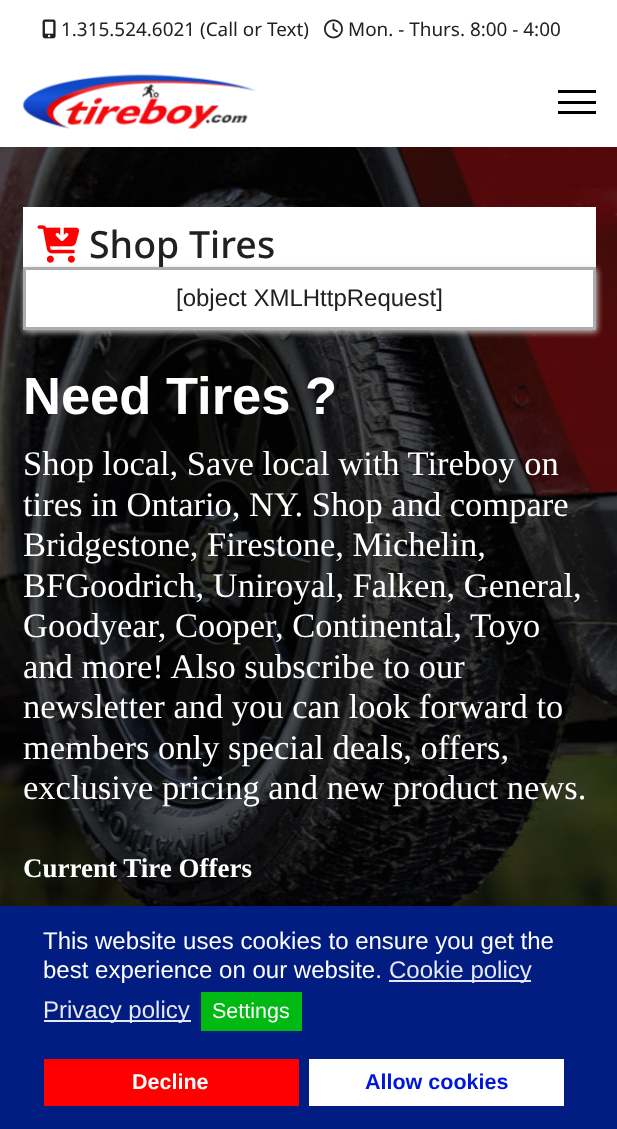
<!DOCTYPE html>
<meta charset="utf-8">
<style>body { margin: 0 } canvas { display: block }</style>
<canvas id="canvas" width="617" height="1129"></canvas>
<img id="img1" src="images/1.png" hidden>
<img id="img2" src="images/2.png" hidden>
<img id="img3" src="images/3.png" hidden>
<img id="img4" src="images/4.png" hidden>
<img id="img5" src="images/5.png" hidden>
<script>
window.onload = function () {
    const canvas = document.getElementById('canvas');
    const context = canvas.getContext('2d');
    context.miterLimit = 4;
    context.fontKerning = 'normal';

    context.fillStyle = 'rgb(255, 255, 255)';
    context.fillRect(0, 0, 617, 1129);
    context.drawImage(document.getElementById('img1'), 42, 19, 14, 20);
    context.drawImage(document.getElementById('img2'), 324, 19, 19, 20);
    context.drawImage(document.getElementById('img3'), 22, 74, 234, 55);
    context.fillStyle = 'rgb(0, 0, 0)';
    context.fillRect(558, 90, 38, 3);
    context.fillRect(558, 101, 38, 3);
    context.fillRect(558, 111, 38, 3);
    context.drawImage(document.getElementById('img4'), 0, 147, 617, 759);
    context.fillStyle = 'rgb(255, 255, 255)';
    context.fillRect(23, 207, 573, 60);
    context.fillStyle = 'rgb(202, 202, 202)';
    context.filter = 'blur(3px)';
    context.beginPath();
    context.rect(24, 269, 573, 63);
    context.fill();
    context.filter = 'none';
    context.drawImage(document.getElementById('img5'), 37, 225, 43, 38);
    context.fillStyle = 'rgb(255, 255, 255)';
    context.beginPath();
    context.rect(24.5, 268.5, 570, 60);
    context.fill();
    context.strokeStyle = 'rgb(172, 172, 172)';
    context.lineWidth = 3;
    context.stroke();
    context.fillStyle = 'rgb(2, 29, 130)';
    context.fillRect(0, 906, 617, 223);
    context.fillStyle = 'rgb(230, 232, 243)';
    context.fillRect(389, 980, 142, 2);
    context.fillRect(44, 1020, 147, 2);
    context.fillStyle = 'rgb(0, 186, 19)';
    context.fillRect(201, 992, 101, 39);
    context.fillStyle = 'rgb(255, 0, 0)';
    context.fillRect(44, 1059, 255, 47);
    context.fillStyle = 'rgb(255, 255, 255)';
    context.fillRect(309, 1059, 255, 47);
    context.font = '18.9px Noto Sans';
    context.fillStyle = 'rgb(33, 33, 33)';
    context.fillText('1.315.524.6021 (Call or Text)', 61, 36);
    context.fillText('Mon. - Thurs. 8:00 - 4:00', 348, 36);
    context.font = '500 37.5px Noto Sans';
    context.fillText('Shop Tires', 89, 258);
    context.font = '24px Liberation Sans';
    context.fillText('[object XMLHttpRequest]', 176, 306);
    context.font = 'bold 52.5px Liberation Sans';
    context.fillStyle = 'rgb(255, 255, 255)';
    context.fillText('Need Tires ?', 23, 414);
    context.font = '34.5px Liberation Serif';
    context.fillText('Shop local, Save local with Tireboy on', 23, 475);
    context.fillText('tires in Ontario, NY. Shop and compare', 23, 516);
    context.fillText('Bridgestone, Firestone, Michelin,', 23, 556);
    context.fillText('BFGoodrich, Uniroyal, Falken, General,', 23, 597);
    context.fillText('Goodyear, Cooper, Continental, Toyo', 23, 637);
    context.fillText('and more! Also subscribe to our', 23, 678);
    context.fillText('newsletter and you can look forward to', 23, 718);
    context.fillText('members only special deals, offers,', 23, 759);
    context.fillText('exclusive pricing and new product news.', 23, 799);
    context.font = 'bold 27px Liberation Serif';
    context.fillText('Current Tire Offers', 23, 877);
    context.font = '24px Liberation Sans';
    context.fillText('This website uses cookies to ensure you get the', 43, 949);
    context.fillText('best experience on our website.', 43, 978);
    context.fillStyle = 'rgb(230, 232, 243)';
    context.fillText('Cookie policy', 389, 978);
    context.fillText('Privacy policy', 43, 1018);
    context.font = '21.5px Liberation Sans';
    context.fillStyle = 'rgb(255, 255, 255)';
    context.fillText('Settings', 212, 1018);
    context.font = 'bold 21.5px Liberation Sans';
    context.fillText('Decline', 132, 1089);
    context.fillStyle = 'rgb(0, 22, 217)';
    context.fillText('Allow cookies', 365, 1089);
};
</script>
